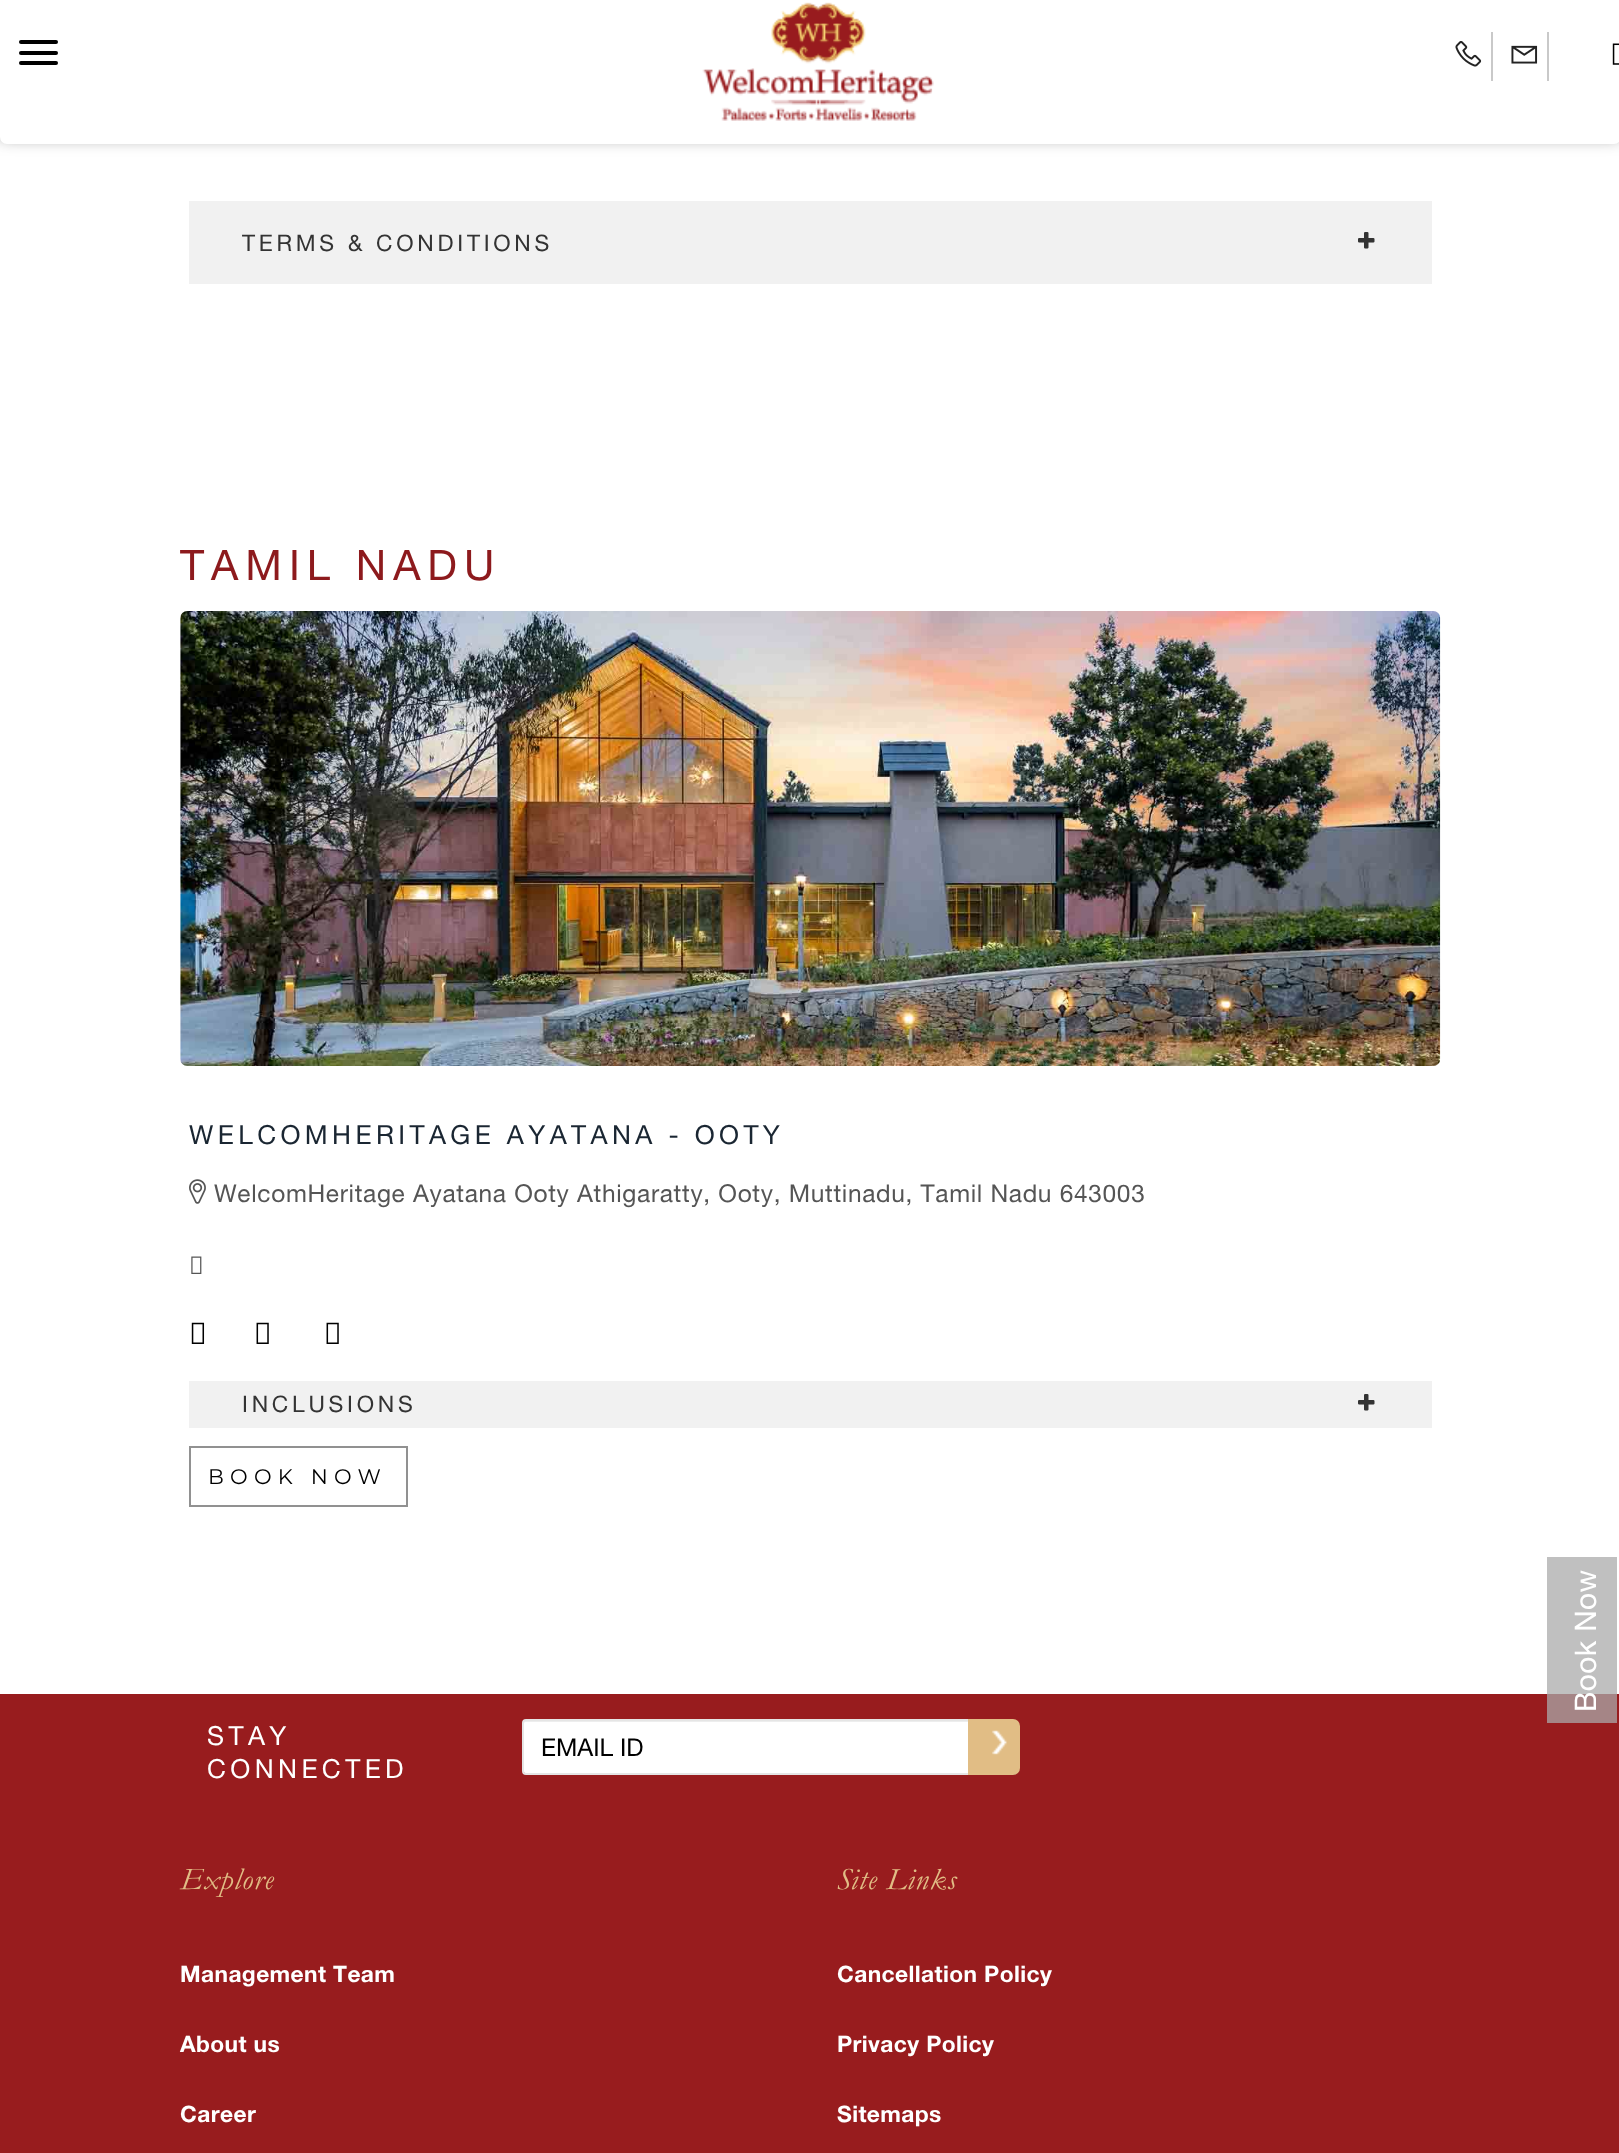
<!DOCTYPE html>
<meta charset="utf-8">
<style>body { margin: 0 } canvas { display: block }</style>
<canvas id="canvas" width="1619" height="2153"></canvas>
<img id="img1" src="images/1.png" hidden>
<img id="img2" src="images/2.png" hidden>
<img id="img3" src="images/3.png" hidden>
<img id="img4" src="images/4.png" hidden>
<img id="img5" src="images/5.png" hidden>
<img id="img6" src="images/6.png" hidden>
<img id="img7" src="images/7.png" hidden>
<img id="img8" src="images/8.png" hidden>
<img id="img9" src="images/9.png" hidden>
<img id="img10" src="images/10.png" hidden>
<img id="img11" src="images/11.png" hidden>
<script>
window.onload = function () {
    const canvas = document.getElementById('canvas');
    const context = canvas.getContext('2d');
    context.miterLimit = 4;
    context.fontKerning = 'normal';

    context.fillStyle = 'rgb(255, 255, 255)';
    context.fillRect(0, 0, 1619, 2153);
    context.fillStyle = 'rgb(192, 192, 192)';
    context.fillRect(1547, 1557, 70, 137);
    context.fillStyle = 'rgb(241, 241, 241)';
    context.fillRect(189, 201, 1243, 83);
    context.drawImage(document.getElementById('img1'), 1358, 232, 17, 17);
    context.drawImage(document.getElementById('img2'), 180, 611, 1261, 455);
    context.drawImage(document.getElementById('img3'), 189, 1179, 17, 25);
    context.drawImage(document.getElementById('img4'), 191, 1256, 11, 18);
    context.drawImage(document.getElementById('img5'), 191, 1322, 14, 22);
    context.drawImage(document.getElementById('img6'), 256, 1322, 13, 22);
    context.drawImage(document.getElementById('img6'), 326, 1322, 13, 22);
    context.fillRect(189, 1381, 1243, 47);
    context.drawImage(document.getElementById('img1'), 1358, 1394, 17, 17);
    context.strokeStyle = 'rgb(145, 145, 145)';
    context.lineWidth = 2;
    context.strokeRect(190, 1447, 217, 59);
    context.fillStyle = 'rgb(85, 85, 85)';
    context.filter = 'blur(9px)';
    context.beginPath();
    context.rect(0, 4, 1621, 131);
    context.fill();
    context.filter = 'none';
    context.fillStyle = 'rgb(255, 255, 255)';
    context.fillRect(0, 0, 1619, 7);
    context.beginPath();
    context.roundRect(0, 0, 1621, 144, 7);
    context.fill();
    context.fillStyle = 'rgb(0, 0, 0)';
    context.beginPath();
    context.roundRect(19, 40, 39, 4, 2);
    context.fill();
    context.beginPath();
    context.roundRect(19, 51, 39, 4, 2);
    context.fill();
    context.beginPath();
    context.roundRect(19, 61, 39, 4, 2);
    context.fill();
    context.drawImage(document.getElementById('img7'), 702, 2, 232, 119);
    context.fillStyle = 'rgb(201, 201, 201)';
    context.fillRect(1491, 32, 2, 49);
    context.drawImage(document.getElementById('img8'), 1455, 41, 27, 26);
    context.fillRect(1547, 32, 2, 49);
    context.drawImage(document.getElementById('img9'), 1511, 45, 27, 19);
    context.drawImage(document.getElementById('img10'), 1612, 43, 7, 22);
    context.fillStyle = 'rgb(152, 28, 30)';
    context.fillRect(0, 1694, 1619, 459);
    context.fillStyle = 'rgb(165, 133, 134)';
    context.fillRect(1547, 1694, 70, 29);
    context.fillStyle = 'rgb(255, 255, 255)';
    context.beginPath();
    context.roundRect(523, 1720, 469, 53, 2.5);
    context.fill();
    context.fillStyle = 'rgba(0, 0, 0, 0.07)';
    context.beginPath();
    context.moveTo(526, 1722);
    context.lineTo(990, 1722);
    context.bezierCurveTo(991, 1722, 992, 1723, 992, 1725);
    context.lineTo(992, 1722);
    context.bezierCurveTo(992, 1721, 991, 1720, 990, 1720);
    context.lineTo(526, 1720);
    context.bezierCurveTo(524, 1720, 523, 1721, 523, 1722);
    context.lineTo(523, 1725);
    context.bezierCurveTo(523, 1723, 524, 1722, 526, 1722);
    context.closePath();
    context.fill();
    context.beginPath();
    context.roundRect(523, 1720, 470, 54, 3);
    context.strokeStyle = 'rgb(229, 229, 229)';
    context.stroke();
    context.fillStyle = 'rgb(225, 189, 133)';
    context.beginPath();
    context.roundRect(968, 1719, 52, 56, [0, 7, 7, 0]);
    context.fill();
    context.drawImage(document.getElementById('img11'), 992, 1730, 24, 45);
    context.letterSpacing = '3.75px';
    context.font = '22.75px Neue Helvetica';
    context.fillStyle = 'rgb(51, 51, 51)';
    context.fillText('TERMS & CONDITIONS', 242, 251);
    context.letterSpacing = '7px';
    context.font = '42px Neue Helvetica';
    context.fillStyle = 'rgb(141, 26, 29)';
    context.fillText('TAMIL NADU', 180, 580);
    context.letterSpacing = '4.4px';
    context.font = '26.25px Neue Helvetica';
    context.fillStyle = 'rgb(26, 38, 50)';
    context.fillText('WELCOMHERITAGE AYATANA - OOTY', 189, 1144);
    context.letterSpacing = '0.68px';
    context.font = '24.5px Neue Helvetica';
    context.fillStyle = 'rgb(85, 85, 85)';
    context.fillText('WelcomHeritage Ayatana Ooty Athigaratty, Ooty, Muttinadu, Tamil Nadu 643003', 214, 1202);
    context.letterSpacing = '3.75px';
    context.font = '22.75px Neue Helvetica';
    context.fillStyle = 'rgb(51, 51, 51)';
    context.fillText('INCLUSIONS', 242, 1412);
    context.letterSpacing = '6.25px';
    context.font = '21px Montserrat';
    context.fillStyle = 'rgb(0, 0, 0)';
    context.fillText('BOOK NOW', 208, 1484);
    context.letterSpacing = '0.4px';
    context.font = '29.75px Neue Helvetica';
    context.fillStyle = 'rgb(255, 255, 255)';
    context.save();
    context.translate(1596, 1712);
    context.rotate(-90 * Math.PI / 180);
    context.fillText('Book Now', 0, 0);
    context.restore();
    context.letterSpacing = '4.4px';
    context.font = '26.25px Neue Helvetica';
    context.fillText('STAY', 207, 1745);
    context.fillText('CONNECTED', 207, 1778);
    context.letterSpacing = '0px';
    context.font = '24.5px Neue Helvetica';
    context.fillStyle = 'rgb(0, 0, 0)';
    context.fillText('EMAIL ID', 541, 1756);
    context.letterSpacing = '0.9px';
    context.font = 'italic 31.5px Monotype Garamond';
    context.fillStyle = 'rgb(225, 189, 133)';
    context.fillText('Explore', 180, 1889);
    context.letterSpacing = '0.4px';
    context.font = 'bold 22.75px Neue Helvetica';
    context.fillStyle = 'rgb(255, 255, 255)';
    context.fillText('Management Team', 180, 1982);
    context.fillText('About us', 180, 2052);
    context.fillText('Career', 180, 2122);
    context.letterSpacing = '0.9px';
    context.font = 'italic 31.5px Monotype Garamond';
    context.fillStyle = 'rgb(225, 189, 133)';
    context.fillText('Site Links', 837, 1889);
    context.letterSpacing = '0.4px';
    context.font = 'bold 22.75px Neue Helvetica';
    context.fillStyle = 'rgb(255, 255, 255)';
    context.fillText('Cancellation Policy', 837, 1982);
    context.fillText('Privacy Policy', 837, 2052);
    context.fillText('Sitemaps', 837, 2122);
};
</script>
